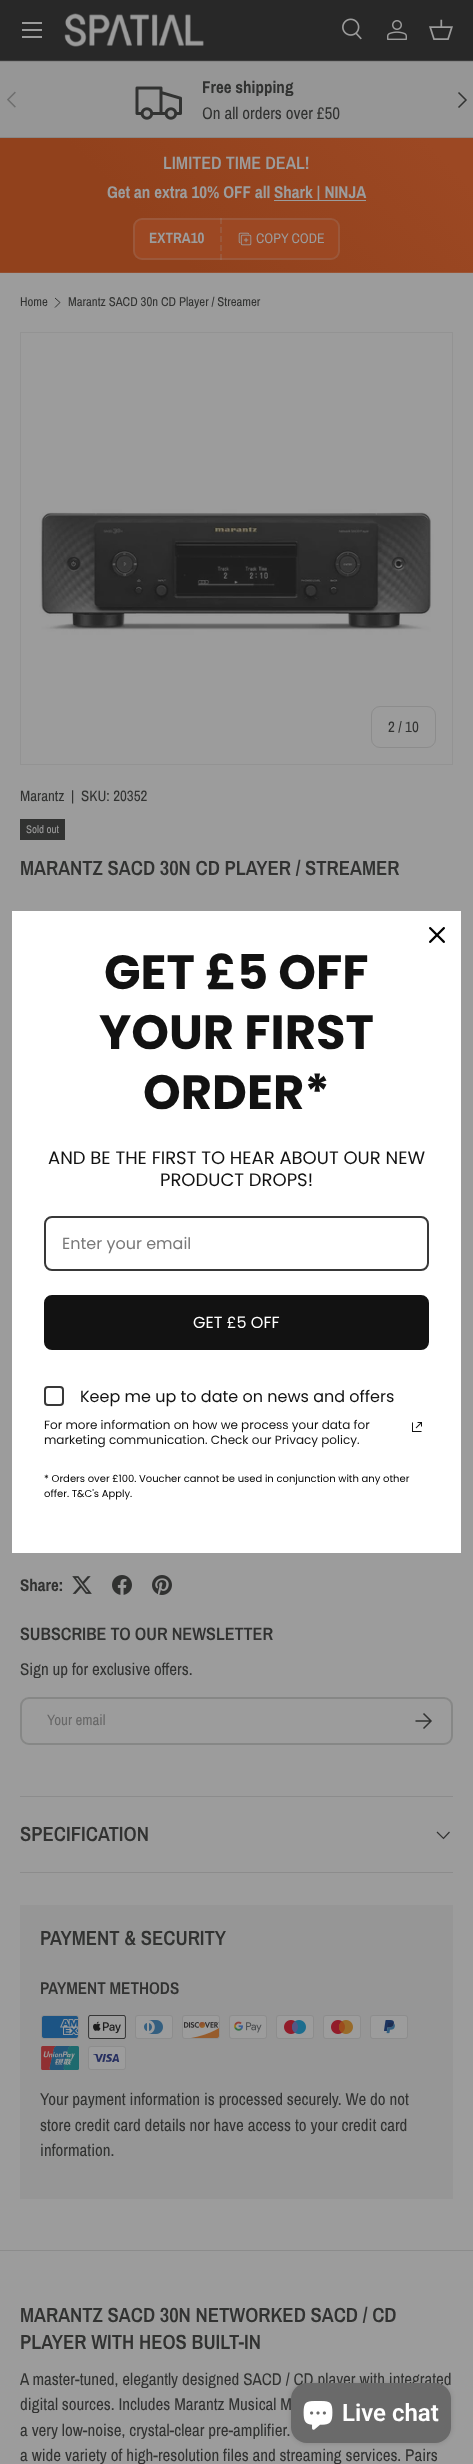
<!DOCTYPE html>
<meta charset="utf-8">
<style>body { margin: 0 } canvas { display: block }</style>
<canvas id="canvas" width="473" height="2464"></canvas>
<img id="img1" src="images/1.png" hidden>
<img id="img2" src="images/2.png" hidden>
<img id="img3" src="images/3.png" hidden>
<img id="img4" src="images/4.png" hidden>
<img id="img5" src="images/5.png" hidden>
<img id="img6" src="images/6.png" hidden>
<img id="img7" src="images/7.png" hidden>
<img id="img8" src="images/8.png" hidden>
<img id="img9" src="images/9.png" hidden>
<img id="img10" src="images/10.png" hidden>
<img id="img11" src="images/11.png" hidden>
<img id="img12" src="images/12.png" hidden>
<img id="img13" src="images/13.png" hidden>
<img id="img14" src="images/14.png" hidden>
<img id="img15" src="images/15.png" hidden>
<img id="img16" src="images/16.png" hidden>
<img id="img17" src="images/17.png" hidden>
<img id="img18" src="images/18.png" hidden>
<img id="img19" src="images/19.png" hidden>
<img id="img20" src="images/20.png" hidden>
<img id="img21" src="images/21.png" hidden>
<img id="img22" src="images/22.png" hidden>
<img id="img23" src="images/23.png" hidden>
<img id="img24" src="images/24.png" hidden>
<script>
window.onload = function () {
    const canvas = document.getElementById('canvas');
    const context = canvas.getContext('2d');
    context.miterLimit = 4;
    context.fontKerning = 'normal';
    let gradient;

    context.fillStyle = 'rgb(156, 156, 156)';
    context.fillRect(0, 0, 473, 2464);
    context.fillStyle = 'rgb(40, 40, 40)';
    context.fillRect(0, 0, 473, 60);
    context.fillStyle = 'rgb(58, 58, 58)';
    context.fillRect(0, 60, 473, 1);
    context.fillStyle = 'rgb(156, 156, 156)';
    context.fillRect(22, 22, 20, 2);
    context.fillRect(22, 36, 20, 2);
    context.fillRect(22, 29, 20, 2);
    context.drawImage(document.getElementById('img1'), 64, 13, 140, 34);
    context.drawImage(document.getElementById('img2'), 342, 18, 20, 22);
    context.drawImage(document.getElementById('img3'), 387, 20, 20, 20);
    context.drawImage(document.getElementById('img4'), 429, 19, 24, 21);
    context.fillStyle = 'rgb(150, 150, 150)';
    context.fillRect(0, 62, 473, 75);
    context.fillStyle = 'rgb(135, 135, 135)';
    context.fillRect(0, 61, 473, 1);
    context.fillRect(0, 137, 473, 1);
    context.drawImage(document.getElementById('img5'), 135, 86, 47, 34);
    context.drawImage(document.getElementById('img6'), 7, 91, 9, 17);
    context.beginPath();
    context.moveTo(458.5, 92.5);
    context.lineTo(466, 100);
    context.lineTo(458.5, 107.5);
    context.strokeStyle = 'rgb(49, 50, 49)';
    context.lineWidth = 1.5;
    context.stroke();
    gradient = context.createLinearGradient(81, 356, 392, 54);
    gradient.addColorStop(0.08, 'rgb(145, 65, 28)');
    gradient.addColorStop(0.32, 'rgb(145, 65, 28)');
    gradient.addColorStop(0.92, 'rgb(156, 72, 35)');
    context.fillStyle = gradient;
    context.fillRect(0, 138, 473, 134);
    gradient = context.createLinearGradient(81, 490, 392, 188);
    gradient.addColorStop(0.08, 'rgb(147, 78, 47)');
    gradient.addColorStop(0.32, 'rgb(147, 78, 47)');
    gradient.addColorStop(0.92, 'rgb(156, 85, 53)');
    context.fillStyle = gradient;
    context.fillRect(0, 272, 473, 1);
    context.fillStyle = 'rgb(156, 156, 156)';
    context.fillRect(274, 200, 92, 1);
    context.fillStyle = 'rgb(156, 72, 35)';
    context.beginPath();
    context.roundRect(133, 218, 207, 42, 9);
    context.fill();
    context.beginPath();
    context.roundRect(134, 219, 205, 40, 8);
    context.strokeStyle = 'rgba(156, 156, 156, 0.2)';
    context.lineWidth = 2;
    context.stroke();
    context.beginPath();
    context.moveTo(221, 218);
    context.lineTo(221, 260);
    context.setLineDash([6, 3]);
    context.stroke();
    context.drawImage(document.getElementById('img7'), 238, 232, 14, 14);
    context.beginPath();
    context.moveTo(55, 298);
    context.lineTo(60, 302.5);
    context.lineTo(55, 307.5);
    context.strokeStyle = 'rgb(49, 50, 49)';
    context.lineWidth = 1;
    context.setLineDash([]);
    context.stroke();
    context.strokeStyle = 'rgb(147, 147, 147)';
    context.strokeRect(20.5, 332.5, 432, 432);
    context.drawImage(document.getElementById('img8'), 21, 333, 431, 431);
    context.beginPath();
    context.roundRect(371.5, 706.5, 64, 41, 8.5);
    context.strokeStyle = 'rgb(140, 140, 140)';
    context.stroke();
    context.fillStyle = 'rgb(49, 50, 49)';
    context.fillRect(20, 819, 45, 21);
    context.drawImage(document.getElementById('img9'), 72, 1576, 20, 18);
    context.drawImage(document.getElementById('img10'), 112, 1575, 20, 20);
    context.drawImage(document.getElementById('img11'), 152, 1575, 20, 20);
    context.beginPath();
    context.roundRect(21, 1698, 431, 46, 8);
    context.strokeStyle = 'rgb(134, 135, 134)';
    context.lineWidth = 2;
    context.stroke();
    context.beginPath();
    context.moveTo(415.5, 1721);
    context.lineTo(430.5, 1721);
    context.moveTo(423.5, 1713.5);
    context.lineTo(431, 1721);
    context.lineTo(423.5, 1728.5);
    context.strokeStyle = 'rgb(49, 50, 49)';
    context.lineWidth = 1.5;
    context.stroke();
    context.fillStyle = 'rgb(140, 140, 140)';
    context.fillRect(20, 1796, 433, 1);
    context.fillRect(20, 1872, 433, 1);
    context.beginPath();
    context.moveTo(449.5, 1832);
    context.lineTo(443.5, 1838.5);
    context.lineTo(437, 1832);
    context.lineWidth = 1.2;
    context.stroke();
    context.fillStyle = 'rgb(150, 150, 150)';
    context.fillRect(20, 1905, 433, 294);
    context.drawImage(document.getElementById('img12'), 41, 2015, 38, 24);
    context.drawImage(document.getElementById('img13'), 88, 2015, 38, 24);
    context.drawImage(document.getElementById('img14'), 135, 2015, 38, 24);
    context.drawImage(document.getElementById('img15'), 182, 2015, 38, 24);
    context.drawImage(document.getElementById('img16'), 229, 2015, 38, 24);
    context.drawImage(document.getElementById('img17'), 276, 2015, 38, 24);
    context.drawImage(document.getElementById('img18'), 323, 2015, 38, 24);
    context.drawImage(document.getElementById('img19'), 370, 2015, 38, 24);
    context.drawImage(document.getElementById('img20'), 41, 2046, 38, 24);
    context.drawImage(document.getElementById('img21'), 88, 2046, 38, 24);
    context.fillStyle = 'rgb(140, 140, 140)';
    context.fillRect(0, 2250, 473, 1);
    context.fillStyle = 'rgb(255, 255, 255)';
    context.fillRect(12, 911, 449, 642);
    context.drawImage(document.getElementById('img22'), 429, 927, 16, 16);
    context.beginPath();
    context.roundRect(45, 1217, 383, 53, 7);
    context.strokeStyle = 'rgb(56, 56, 56)';
    context.lineWidth = 2;
    context.stroke();
    context.fillStyle = 'rgb(18, 18, 18)';
    context.beginPath();
    context.roundRect(45, 1296, 383, 53, 7);
    context.fill();
    context.strokeStyle = 'rgb(18, 18, 18)';
    context.stroke();
    context.beginPath();
    context.roundRect(45, 1387, 18, 18, 3);
    context.strokeStyle = 'rgb(56, 56, 56)';
    context.stroke();
    context.drawImage(document.getElementById('img23'), 412, 1422, 10, 10);
    context.fillStyle = 'rgba(0, 0, 0, 0.15)';
    context.filter = 'blur(2.5px)';
    context.beginPath();
    context.roundRect(291, 2383, 160, 60, 16);
    context.fill();
    context.filter = 'none';
    context.font = 'bold 17px Archivo Narrow';
    context.fillStyle = 'rgb(49, 50, 49)';
    context.fillText('Free shipping', 202, 93);
    context.font = '17px Archivo Narrow';
    context.fillText('On all orders over £50', 202, 119);
    context.font = '600 18px Archivo Narrow';
    context.fillStyle = 'rgb(156, 156, 156)';
    context.fillText('LIMITED TIME DEAL!', 163, 169);
    context.font = 'bold 17px Archivo Narrow';
    context.fillText('Get an extra 10% OFF all', 107, 198);
    context.fillText('Shark | NINJA', 274, 198);
    context.font = 'bold 15px Archivo Narrow';
    context.fillText('EXTRA10', 149, 243);
    context.font = '14px Archivo Narrow';
    context.fillText('COPY CODE', 256, 243);
    context.font = '12.75px Archivo Narrow';
    context.fillStyle = 'rgb(49, 50, 49)';
    context.fillText('Home', 20, 306);
    context.fillText('Marantz SACD 30n CD Player / Streamer', 68, 306);
    context.font = '15px Archivo Narrow';
    context.fillText('2 / 10', 388, 732);
    context.fillText('Marantz', 20, 801);
    context.fillText('|', 71, 801);
    context.fillText('SKU: 20352', 81, 801);
    context.font = '11px Archivo Narrow';
    context.fillStyle = 'rgb(156, 156, 156)';
    context.fillText('Sold out', 26, 833);
    context.font = '600 20.6px Archivo Narrow';
    context.fillStyle = 'rgb(49, 50, 49)';
    context.fillText('MARANTZ SACD 30N CD PLAYER / STREAMER', 20, 875);
    context.font = 'bold 17px Archivo Narrow';
    context.fillText('Share:', 20, 1591);
    context.font = '600 18px Archivo Narrow';
    context.fillText('SUBSCRIBE TO OUR NEWSLETTER', 20, 1640);
    context.font = '17px Archivo Narrow';
    context.fillText('Sign up for exclusive offers.', 20, 1675);
    context.font = '15px Archivo Narrow';
    context.fillStyle = 'rgb(103, 103, 103)';
    context.fillText('Your email', 47, 1725);
    context.font = '600 20.6px Archivo Narrow';
    context.fillStyle = 'rgb(49, 50, 49)';
    context.fillText('SPECIFICATION', 20, 1841);
    context.fillText('PAYMENT & SECURITY', 40, 1945);
    context.font = '600 17px Archivo Narrow';
    context.fillText('PAYMENT METHODS', 40, 1994);
    context.font = '17px Archivo Narrow';
    context.fillText('Your payment information is processed securely. We do not', 40, 2105);
    context.fillText('store credit card details nor have access to your credit card', 40, 2131);
    context.fillText('information.', 40, 2156);
    context.font = '600 20.6px Archivo Narrow';
    context.fillText('MARANTZ SACD 30N NETWORKED SACD / CD', 20, 2322);
    context.fillText('PLAYER WITH HEOS BUILT-IN', 20, 2349);
    context.font = '17px Archivo Narrow';
    context.fillText('A master-tuned, elegantly designed SACD / CD player with integrated', 20, 2385);
    context.fillText('digital sources. Includes Marantz Musical M', 20, 2410);
    context.fillText('a very low-noise, crystal-clear pre-amplifier.', 20, 2436);
    context.fillText('a wide variety of high-resolution files and streaming services. Pairs', 20, 2461);
    context.font = 'bold 48px Poppins';
    context.fillStyle = 'rgb(18, 18, 18)';
    context.fillText('GET £5 OFF', 104, 989);
    context.fillText('YOUR FIRST', 99, 1049);
    context.fillText('ORDER*', 143, 1109);
    context.font = '18px Poppins';
    context.fillText('AND BE THE FIRST TO HEAR ABOUT OUR NEW', 48, 1164);
    context.fillText('PRODUCT DROPS!', 160, 1186);
    context.font = '16px Poppins';
    context.fillStyle = 'rgb(121, 121, 121)';
    context.fillText('Enter your email', 62, 1249);
    context.fillStyle = 'rgb(255, 255, 255)';
    context.fillText('GET £5 OFF', 193, 1328);
    context.fillStyle = 'rgb(18, 18, 18)';
    context.fillText('Keep me up to date on news and offers', 80, 1402);
    context.font = '12px Poppins';
    context.fillText('For more information on how we process your data for', 44, 1429);
    context.fillText('marketing communication. Check our Privacy policy.', 44, 1444);
    context.font = '10px Poppins';
    context.fillStyle = 'rgb(0, 0, 0)';
    context.fillText('* Orders over £100. Voucher cannot be used in conjunction with any other', 44, 1482);
    context.fillText('offer. T&C\'s Apply.', 44, 1497);
    context.fillStyle = 'rgb(106, 106, 106)';
    context.beginPath();
    context.roundRect(291, 2383, 160, 60, 16);
    context.fill();
    context.drawImage(document.getElementById('img24'), 303, 2401, 30, 29);
    context.font = '600 24px Roboto';
    context.fillStyle = 'rgb(255, 255, 255)';
    context.fillText('Live chat', 342, 2421);
};
</script>
